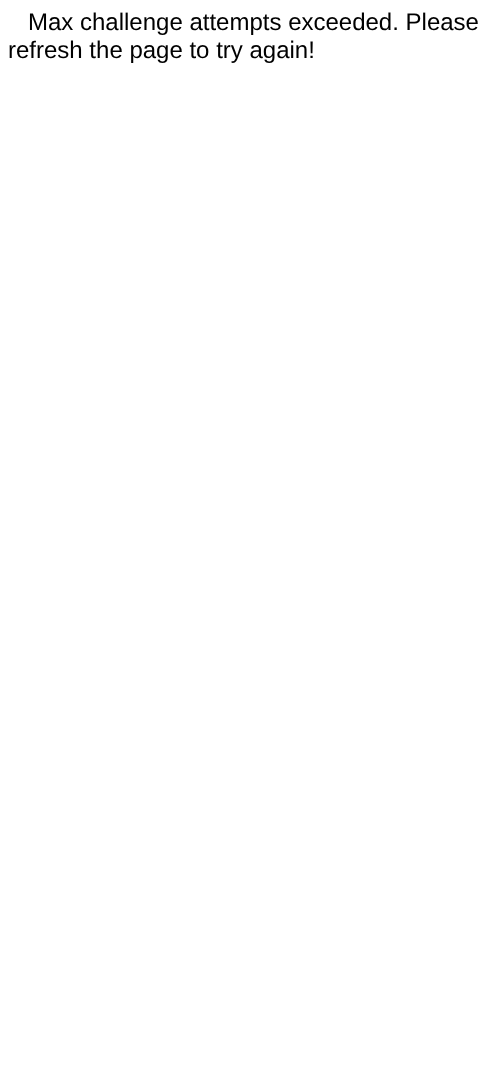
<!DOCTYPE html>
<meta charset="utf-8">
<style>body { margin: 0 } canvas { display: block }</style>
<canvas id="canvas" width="504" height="1079"></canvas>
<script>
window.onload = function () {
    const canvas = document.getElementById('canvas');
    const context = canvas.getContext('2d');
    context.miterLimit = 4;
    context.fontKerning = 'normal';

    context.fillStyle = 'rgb(255, 255, 255)';
    context.fillRect(0, 0, 504, 1079);
    context.font = '24px Liberation Sans';
    context.fillStyle = 'rgb(0, 0, 0)';
    context.fillText('Max challenge attempts exceeded. Please', 28, 30);
    context.fillText('refresh the page to try again!', 8, 58);
};
</script>
